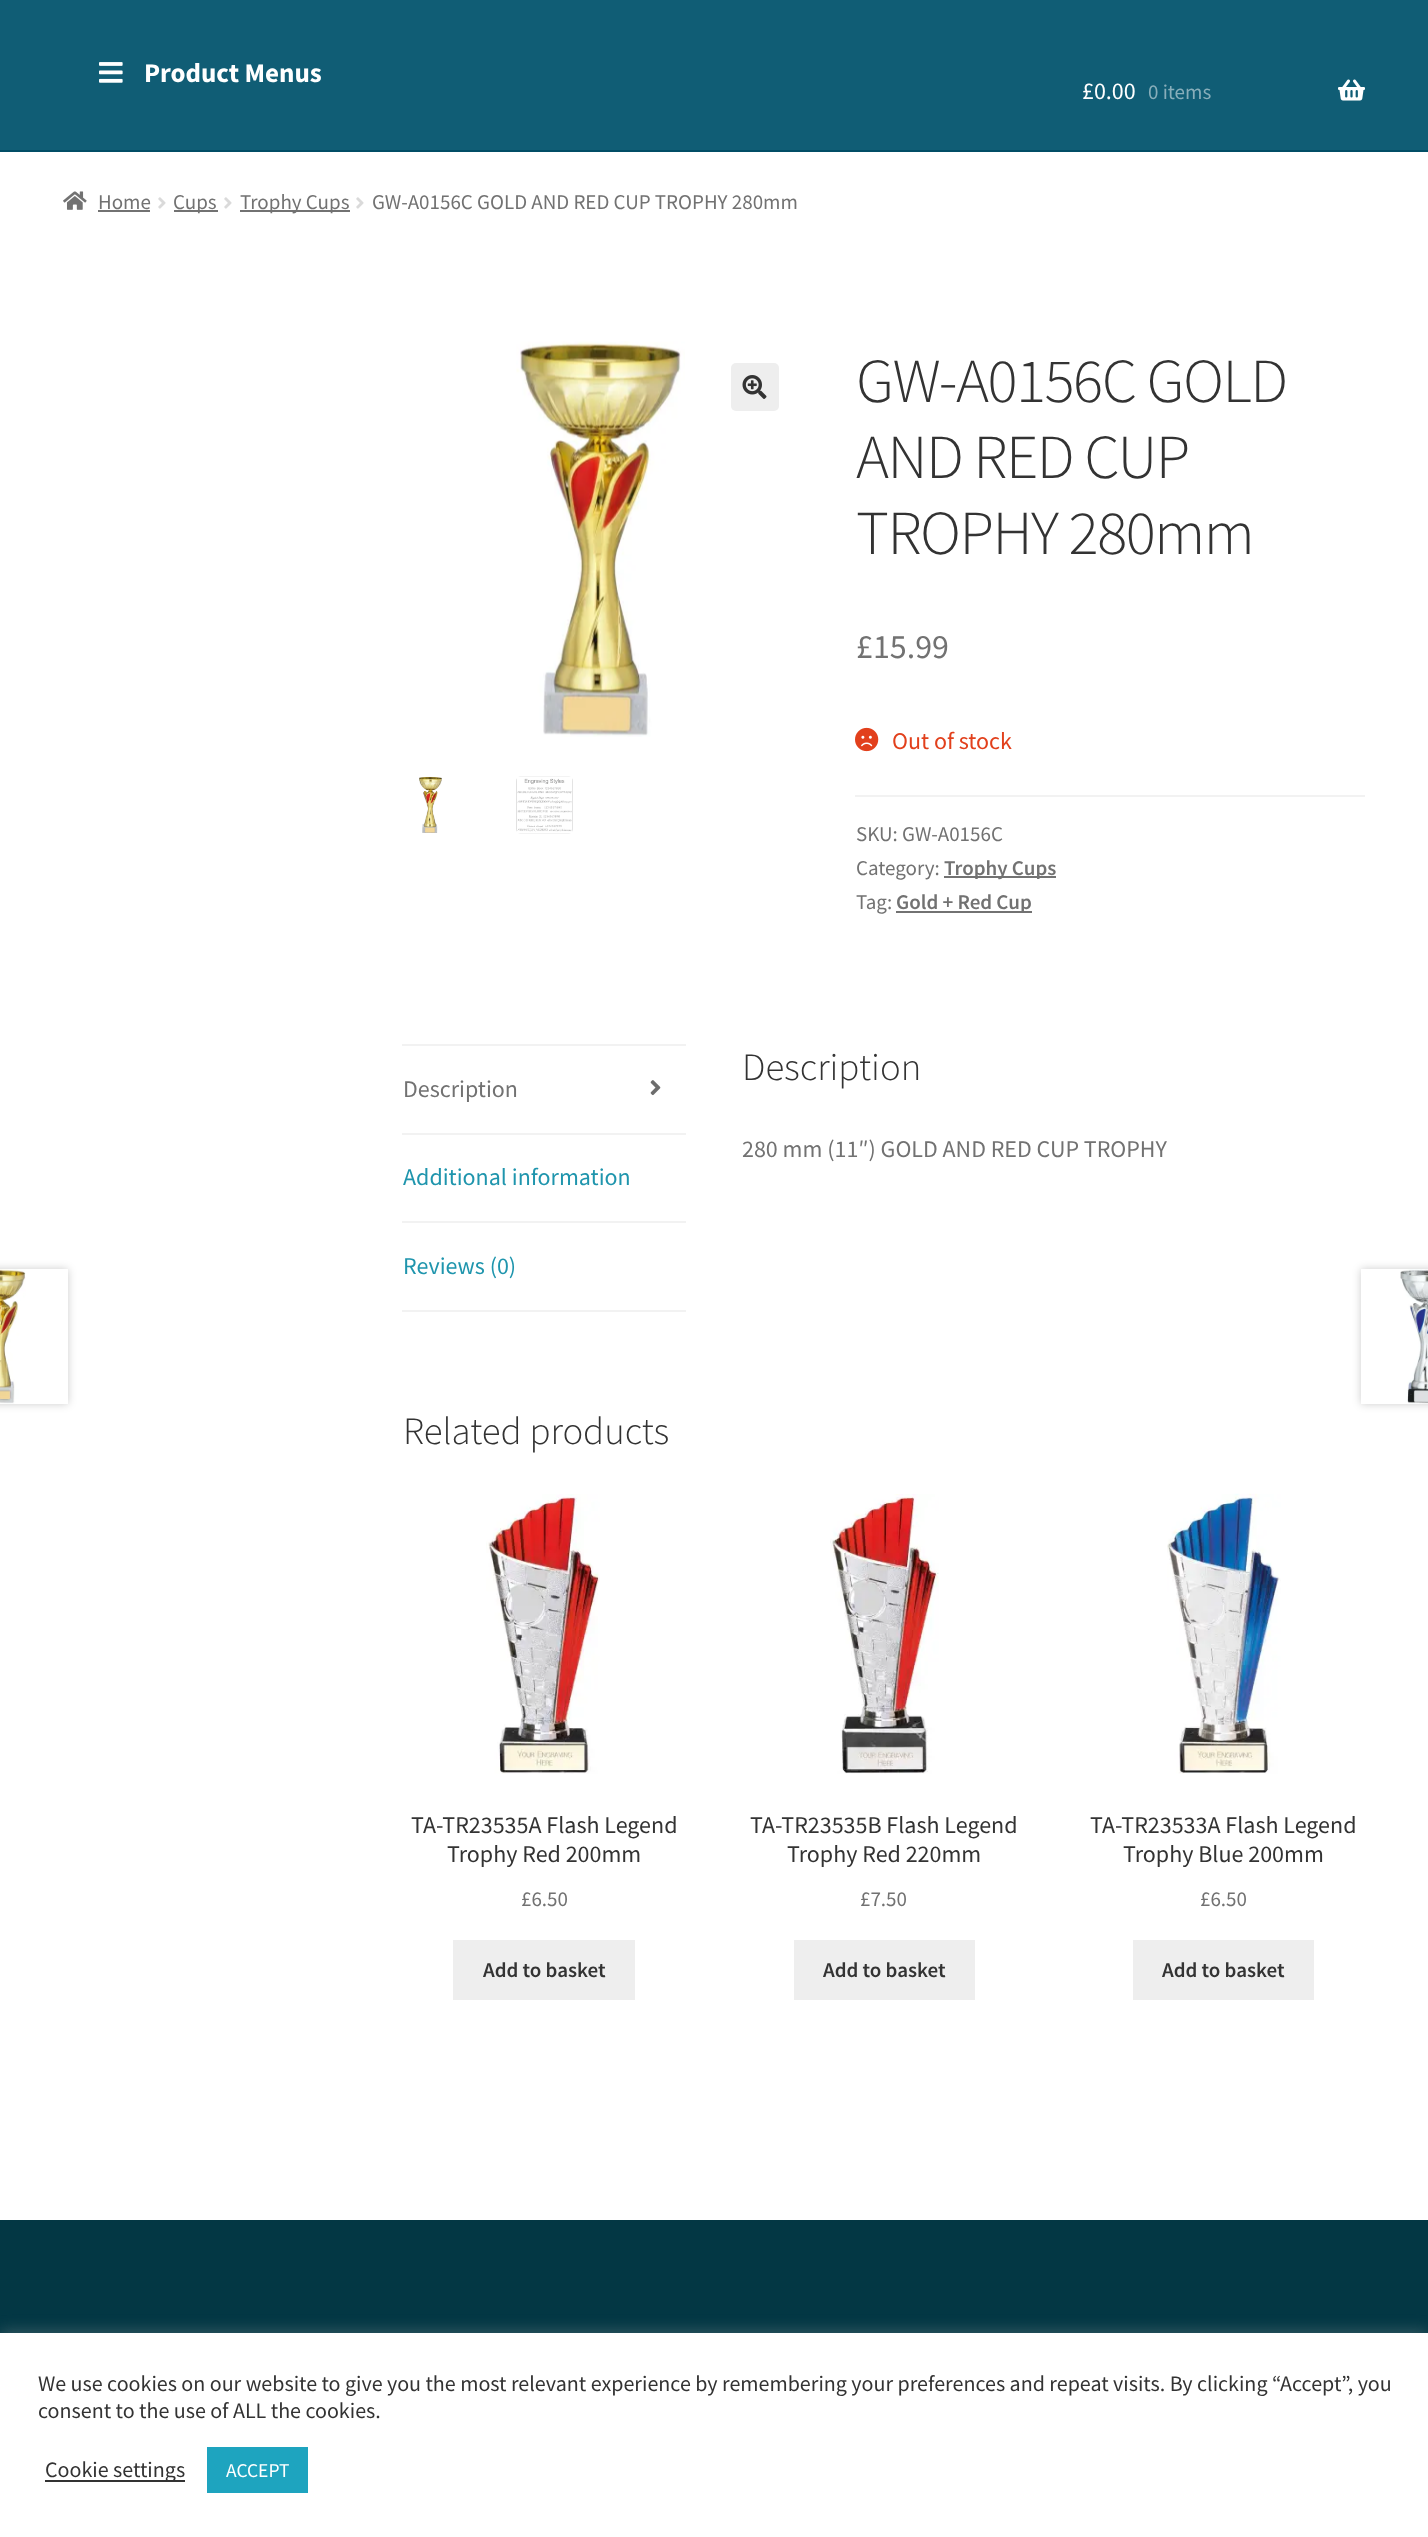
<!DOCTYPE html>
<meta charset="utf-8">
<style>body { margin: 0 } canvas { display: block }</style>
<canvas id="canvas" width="1428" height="2537"></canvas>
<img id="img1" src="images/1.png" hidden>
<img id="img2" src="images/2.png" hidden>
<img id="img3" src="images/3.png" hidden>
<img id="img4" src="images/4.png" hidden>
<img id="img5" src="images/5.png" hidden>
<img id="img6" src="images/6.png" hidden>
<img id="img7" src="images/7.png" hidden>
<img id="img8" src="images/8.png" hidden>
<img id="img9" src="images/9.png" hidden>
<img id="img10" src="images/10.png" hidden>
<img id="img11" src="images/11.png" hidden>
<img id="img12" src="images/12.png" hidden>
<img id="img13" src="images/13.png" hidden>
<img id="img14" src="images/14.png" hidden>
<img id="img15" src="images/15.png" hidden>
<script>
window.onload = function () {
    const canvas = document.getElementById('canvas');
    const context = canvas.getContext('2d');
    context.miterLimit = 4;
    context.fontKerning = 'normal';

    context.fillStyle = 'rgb(255, 255, 255)';
    context.fillRect(0, 0, 1428, 2537);
    context.fillStyle = 'rgb(16, 93, 117)';
    context.fillRect(0, 0, 1428, 150);
    context.fillStyle = 'rgb(1, 78, 102)';
    context.fillRect(0, 150, 1428, 2);
    context.drawImage(document.getElementById('img1'), 99, 62, 24, 21);
    context.drawImage(document.getElementById('img2'), 1338, 79, 27, 22);
    context.drawImage(document.getElementById('img3'), 63, 191, 24, 19);
    context.fillStyle = 'rgb(114, 114, 114)';
    context.fillRect(98, 210, 52, 2);
    context.drawImage(document.getElementById('img4'), 158, 197, 8, 12);
    context.fillRect(174, 210, 44, 2);
    context.drawImage(document.getElementById('img4'), 224, 197, 8, 12);
    context.fillRect(240, 210, 110, 2);
    context.drawImage(document.getElementById('img4'), 356, 197, 8, 12);
    context.drawImage(document.getElementById('img5'), 516, 341, 169, 396);
    context.fillStyle = 'rgb(238, 238, 238)';
    context.beginPath();
    context.roundRect(731, 363, 48, 48, 5);
    context.fill();
    context.drawImage(document.getElementById('img6'), 742, 375, 25, 24);
    context.drawImage(document.getElementById('img7'), 419, 776, 23, 57);
    context.drawImage(document.getElementById('img8'), 516, 776, 57, 58);
    context.drawImage(document.getElementById('img9'), 855, 727, 24, 25);
    context.fillStyle = 'rgb(242, 242, 242)';
    context.fillRect(855, 795, 510, 2);
    context.fillStyle = 'rgb(114, 114, 114)';
    context.fillRect(944, 876, 112, 2);
    context.fillRect(896, 911, 136, 2);
    context.fillStyle = 'rgb(242, 242, 242)';
    context.fillRect(402, 1044, 284, 2);
    context.fillRect(402, 1133, 284, 2);
    context.drawImage(document.getElementById('img10'), 650, 1080, 11, 16);
    context.fillRect(402, 1221, 284, 2);
    context.fillRect(402, 1310, 284, 2);
    context.fillStyle = 'rgba(0, 0, 0, 0.2)';
    context.filter = 'blur(4px)';
    context.beginPath();
    context.rect(-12, 1269, 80, 135);
    context.fill();
    context.filter = 'none';
    context.fillStyle = 'rgb(255, 255, 255)';
    context.fillRect(26, 1269, 42, 135);
    context.drawImage(document.getElementById('img11'), 0, 1269, 26, 135);
    context.save();
    context.beginPath();
    context.moveTo(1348, 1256);
    context.lineTo(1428, 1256);
    context.lineTo(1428, 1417);
    context.lineTo(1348, 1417);
    context.closePath();
    context.moveTo(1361, 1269);
    context.lineTo(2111, 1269);
    context.lineTo(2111, 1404);
    context.lineTo(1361, 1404);
    context.closePath();
    context.clip('evenodd');
    context.fillStyle = 'rgba(0, 0, 0, 0.2)';
    context.filter = 'blur(4px)';
    context.beginPath();
    context.rect(1361, 1269, 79, 135);
    context.fill();
    context.filter = 'none';
    context.restore();
    context.drawImage(document.getElementById('img12'), 1400, 1269, 28, 135);
    context.drawImage(document.getElementById('img13'), 486, 1494, 114, 280);
    context.fillStyle = 'rgb(238, 238, 238)';
    context.fillRect(453, 1940, 182, 60);
    context.drawImage(document.getElementById('img14'), 830, 1494, 109, 280);
    context.fillRect(794, 1940, 181, 60);
    context.drawImage(document.getElementById('img15'), 1167, 1493, 114, 281);
    context.fillRect(1133, 1940, 181, 60);
    context.fillStyle = 'rgb(3, 55, 68)';
    context.fillRect(0, 2220, 1428, 113);
    context.fillStyle = 'rgba(172, 171, 171, 0.3)';
    context.filter = 'blur(7.5px)';
    context.beginPath();
    context.rect(0, 2331, 1428, 206);
    context.fill();
    context.filter = 'none';
    context.fillStyle = 'rgb(255, 255, 255)';
    context.fillRect(0, 2333, 1428, 204);
    context.fillStyle = 'rgb(51, 51, 51)';
    context.fillRect(45, 2480, 140, 2);
    context.fillStyle = 'rgb(30, 164, 191)';
    context.fillRect(207, 2447, 101, 46);
    context.font = 'bold 27px Source Sans Pro';
    context.fillStyle = 'rgb(255, 255, 255)';
    context.fillText('Product Menus', 144, 82);
    context.font = '24px Source Sans Pro';
    context.fillText('£0.00', 1082, 99);
    context.font = '21px Source Sans Pro';
    context.fillStyle = 'rgb(136, 174, 186)';
    context.fillText('0 items', 1148, 99);
    context.fillStyle = 'rgb(114, 114, 114)';
    context.fillText('Home', 98, 209);
    context.fillText('Cups', 173, 209);
    context.fillText('Trophy Cups', 240, 209);
    context.fillText('GW-A0156C GOLD AND RED CUP TROPHY 280mm', 372, 209);
    context.letterSpacing = '-1.5px';
    context.font = '300 62.75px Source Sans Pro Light';
    context.fillStyle = 'rgb(51, 51, 51)';
    context.fillText('GW-A0156C GOLD', 856, 402);
    context.fillText('AND RED CUP', 856, 478);
    context.fillText('TROPHY 280mm', 856, 554);
    context.letterSpacing = '0px';
    context.font = '34px Source Sans Pro';
    context.fillStyle = 'rgb(114, 114, 114)';
    context.fillText('£15.99', 856, 658);
    context.font = '24px Source Sans Pro';
    context.fillStyle = 'rgb(226, 64, 28)';
    context.fillText('Out of stock', 892, 749);
    context.font = '21px Source Sans Pro';
    context.fillStyle = 'rgb(114, 114, 114)';
    context.fillText('SKU: GW-A0156C', 856, 841);
    context.fillText('Category:', 856, 875);
    context.font = '600 21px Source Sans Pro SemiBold';
    context.fillText('Trophy Cups', 944, 875);
    context.font = '21px Source Sans Pro';
    context.fillText('Tag:', 856, 909);
    context.font = '600 21px Source Sans Pro SemiBold';
    context.fillText('Gold + Red Cup', 896, 909);
    context.font = '24px Source Sans Pro';
    context.fillText('Description', 403, 1097);
    context.fillStyle = 'rgb(31, 149, 173)';
    context.fillText('Additional information', 403, 1185);
    context.fillText('Reviews (0)', 403, 1274);
    context.font = '300 38.75px Source Sans Pro Light';
    context.fillStyle = 'rgb(51, 51, 51)';
    context.fillText('Description', 742, 1080);
    context.font = '24px Source Sans Pro';
    context.fillStyle = 'rgb(114, 114, 114)';
    context.fillText('280 mm (11″) GOLD AND RED CUP TROPHY', 742, 1157);
    context.font = '300 38.75px Source Sans Pro Light';
    context.fillStyle = 'rgb(51, 51, 51)';
    context.fillText('Related products', 403, 1444);
    context.font = '24px Source Sans Pro';
    context.fillText('TA-TR23535A Flash Legend', 411, 1833);
    context.fillText('Trophy Red 200mm', 447, 1862);
    context.font = '21px Source Sans Pro';
    context.fillStyle = 'rgb(114, 114, 114)';
    context.fillText('£6.50', 521, 1906);
    context.font = '600 21px Source Sans Pro SemiBold';
    context.fillStyle = 'rgb(51, 51, 51)';
    context.fillText('Add to basket', 483, 1977);
    context.font = '24px Source Sans Pro';
    context.fillText('TA-TR23535B Flash Legend', 750, 1833);
    context.fillText('Trophy Red 220mm', 787, 1862);
    context.font = '21px Source Sans Pro';
    context.fillStyle = 'rgb(114, 114, 114)';
    context.fillText('£7.50', 860, 1906);
    context.font = '600 21px Source Sans Pro SemiBold';
    context.fillStyle = 'rgb(51, 51, 51)';
    context.fillText('Add to basket', 823, 1977);
    context.font = '24px Source Sans Pro';
    context.fillText('TA-TR23533A Flash Legend', 1090, 1833);
    context.fillText('Trophy Blue 200mm', 1123, 1862);
    context.font = '21px Source Sans Pro';
    context.fillStyle = 'rgb(114, 114, 114)';
    context.fillText('£6.50', 1200, 1906);
    context.font = '600 21px Source Sans Pro SemiBold';
    context.fillStyle = 'rgb(51, 51, 51)';
    context.fillText('Add to basket', 1162, 1977);
    context.font = '22px Source Sans Pro';
    context.fillText('We use cookies on our website to give you the most relevant experience by remembering your preferences and repeat visits. By clicking “Accept”, you', 38, 2391);
    context.fillText('consent to the use of ALL the cookies.', 38, 2418);
    context.fillText('Cookie settings', 45, 2477);
    context.font = '19.5px Source Sans Pro';
    context.fillStyle = 'rgb(255, 255, 255)';
    context.fillText('ACCEPT', 226, 2477);
};
</script>
